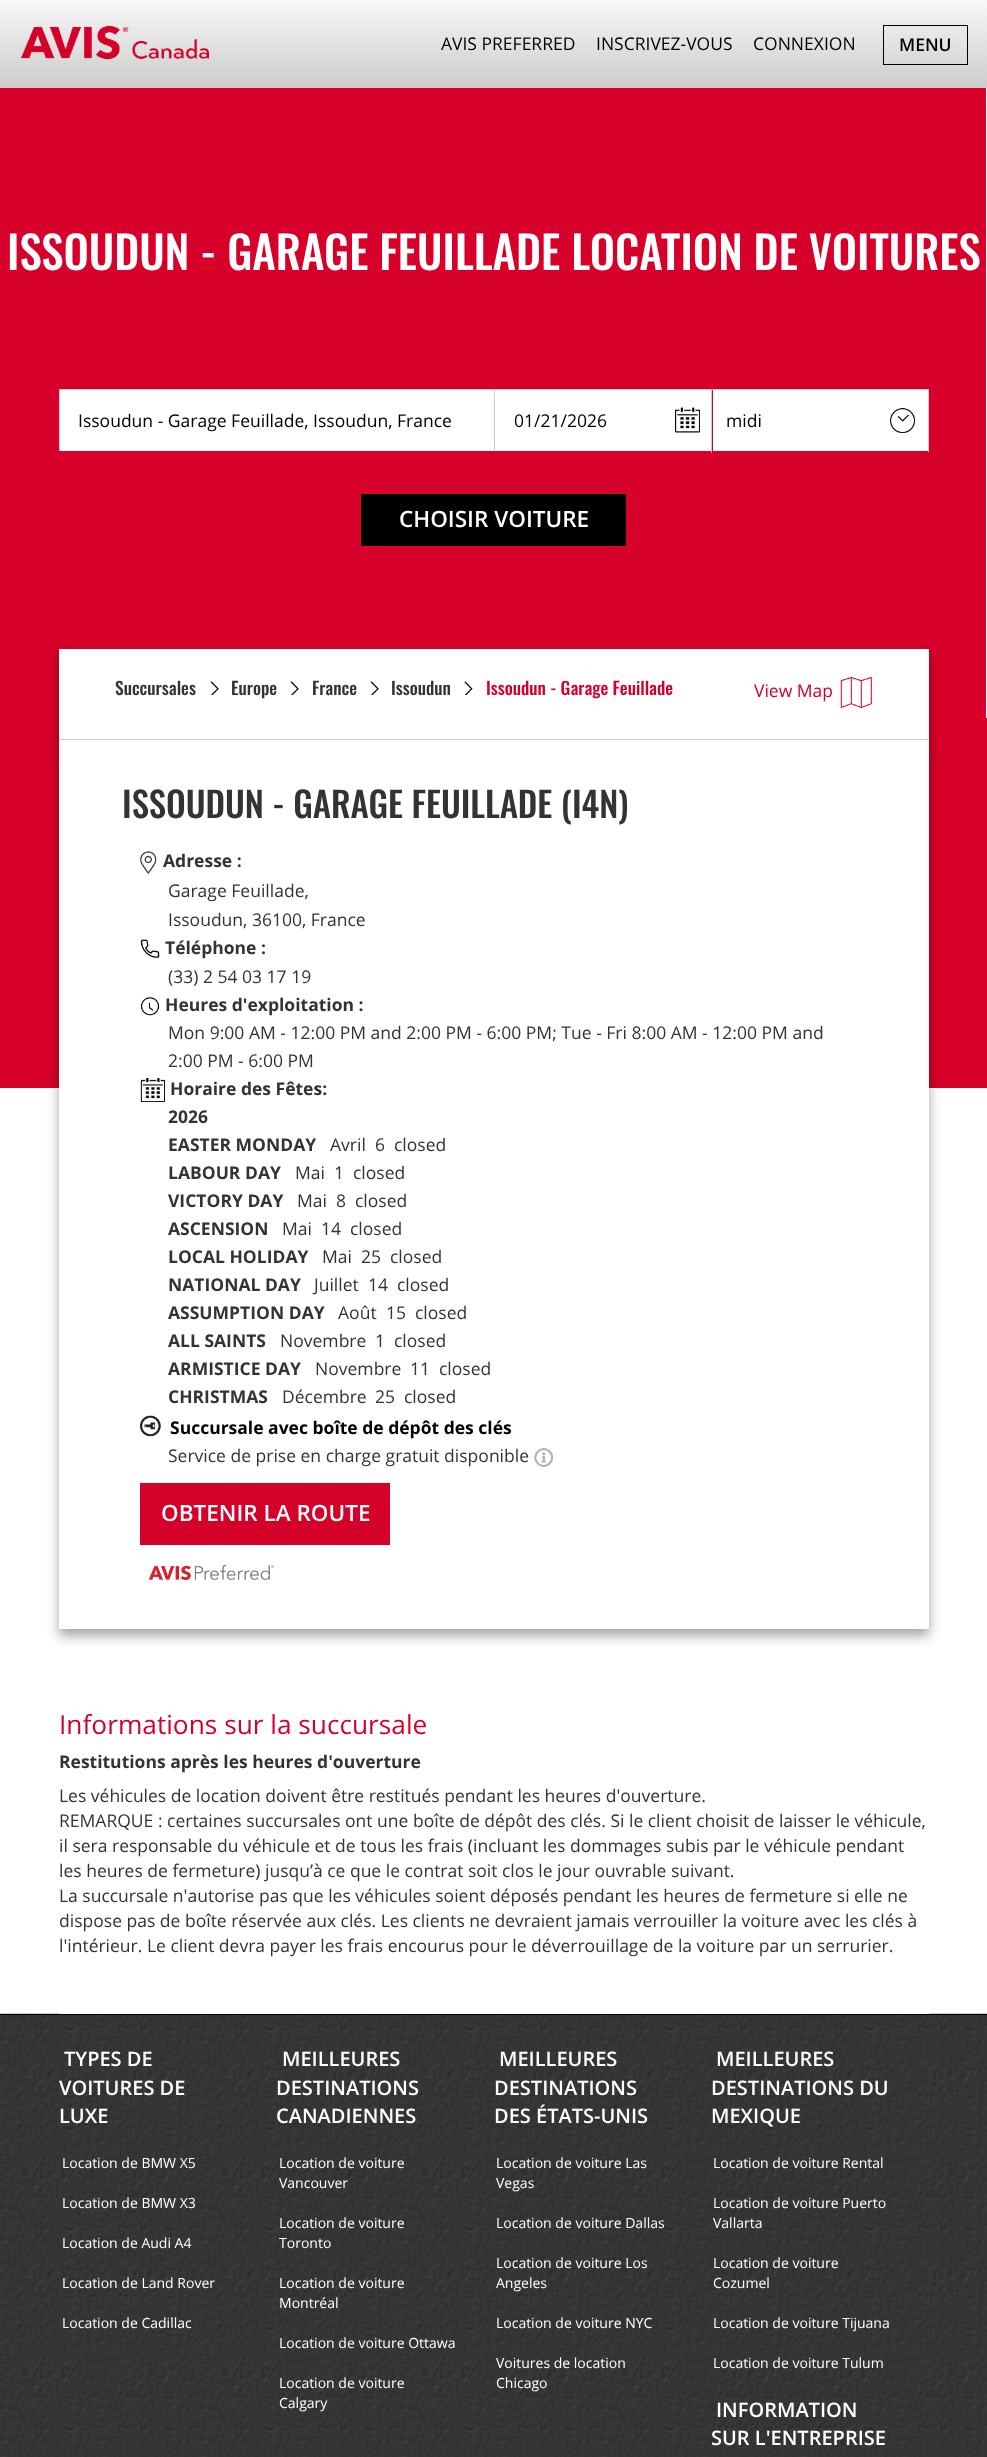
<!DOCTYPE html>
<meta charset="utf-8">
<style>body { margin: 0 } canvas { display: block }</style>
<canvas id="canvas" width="987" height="2457"></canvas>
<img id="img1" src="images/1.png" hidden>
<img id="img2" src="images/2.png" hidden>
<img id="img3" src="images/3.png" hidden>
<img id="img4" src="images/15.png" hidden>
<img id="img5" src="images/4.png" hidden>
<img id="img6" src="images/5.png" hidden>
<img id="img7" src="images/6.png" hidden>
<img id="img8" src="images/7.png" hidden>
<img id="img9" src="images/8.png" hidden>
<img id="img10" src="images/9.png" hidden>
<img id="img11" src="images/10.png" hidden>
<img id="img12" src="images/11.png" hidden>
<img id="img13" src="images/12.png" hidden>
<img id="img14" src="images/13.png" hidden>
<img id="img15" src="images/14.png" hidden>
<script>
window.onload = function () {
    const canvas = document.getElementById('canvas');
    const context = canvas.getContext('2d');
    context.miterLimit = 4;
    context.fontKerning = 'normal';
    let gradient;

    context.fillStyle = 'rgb(255, 255, 255)';
    context.fillRect(0, 0, 987, 2457);
    gradient = context.createLinearGradient(494, 0, 494, 88);
    gradient.addColorStop(0, 'rgb(248, 248, 248)');
    gradient.addColorStop(1, 'rgb(204, 204, 204)');
    context.fillStyle = gradient;
    context.fillRect(0, 0, 987, 88);
    context.drawImage(document.getElementById('img1'), 20, 25, 190, 35);
    context.strokeStyle = 'rgb(0, 0, 0)';
    context.strokeRect(883.5, 25.5, 84, 39);
    context.fillStyle = 'rgb(214, 0, 42)';
    context.fillRect(0, 88, 987, 997);
    context.fillStyle = 'rgb(255, 255, 255)';
    context.fillRect(986, 88, 1, 630);
    context.fillRect(60, 390, 434, 61);
    context.fillStyle = 'rgb(204, 204, 204)';
    context.fillRect(59, 389, 870, 1);
    context.fillRect(59, 389, 1, 62);
    context.fillStyle = 'rgb(255, 255, 255)';
    context.fillRect(495, 390, 216, 61);
    context.drawImage(document.getElementById('img2'), 675, 407, 25, 26);
    context.fillStyle = 'rgb(204, 204, 204)';
    context.fillRect(494, 389, 1, 62);
    context.fillStyle = 'rgb(255, 255, 255)';
    context.fillRect(713, 390, 215, 61);
    context.drawImage(document.getElementById('img3'), 890, 408, 25, 25);
    context.fillStyle = 'rgb(204, 204, 204)';
    context.beginPath();
    context.moveTo(929, 389);
    context.lineTo(929, 454);
    context.lineTo(928, 451);
    context.lineTo(928, 390);
    context.closePath();
    context.fill();
    context.fillStyle = 'rgb(212, 0, 42)';
    context.beginPath();
    context.moveTo(929, 454);
    context.lineTo(711, 454);
    context.lineTo(712, 451);
    context.lineTo(928, 451);
    context.closePath();
    context.fill();
    context.fillStyle = 'rgb(204, 204, 204)';
    context.beginPath();
    context.moveTo(711, 454);
    context.lineTo(711, 389);
    context.lineTo(712, 390);
    context.lineTo(712, 451);
    context.closePath();
    context.fill();
    context.fillStyle = 'rgb(0, 0, 0)';
    context.fillRect(361, 494, 265, 52);
    context.fillStyle = 'rgb(212, 0, 42)';
    context.fillRect(0, 1085, 987, 3);
    context.fillStyle = 'rgba(0, 0, 0, 0.35)';
    context.filter = 'blur(6px)';
    context.beginPath();
    context.rect(59, 656, 870, 92);
    context.fill();
    context.filter = 'none';
    context.drawImage(document.getElementById('img4'), 0, 2013, 987, 444);
    context.fillStyle = 'rgb(255, 255, 255)';
    context.fillRect(59, 740, 870, 1274);
    context.save();
    context.beginPath();
    context.moveTo(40, 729);
    context.lineTo(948, 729);
    context.lineTo(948, 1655);
    context.lineTo(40, 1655);
    context.closePath();
    context.moveTo(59, 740);
    context.lineTo(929, 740);
    context.lineTo(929, 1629);
    context.lineTo(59, 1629);
    context.closePath();
    context.clip('evenodd');
    context.fillStyle = 'rgba(0, 0, 0, 0.35)';
    context.filter = 'blur(6px)';
    context.beginPath();
    context.rect(59, 748, 870, 888);
    context.fill();
    context.filter = 'none';
    context.restore();
    context.fillRect(59, 649, 870, 90);
    context.fillStyle = 'rgb(204, 204, 204)';
    context.fillRect(59, 739, 870, 1);
    context.drawImage(document.getElementById('img5'), 210, 681, 9, 14);
    context.drawImage(document.getElementById('img6'), 290, 681, 9, 14);
    context.drawImage(document.getElementById('img5'), 370, 681, 9, 14);
    context.drawImage(document.getElementById('img7'), 464, 681, 9, 14);
    context.drawImage(document.getElementById('img8'), 840, 677, 32, 31);
    context.drawImage(document.getElementById('img9'), 140, 851, 17, 23);
    context.drawImage(document.getElementById('img10'), 140, 939, 20, 19);
    context.drawImage(document.getElementById('img11'), 140, 997, 20, 19);
    context.drawImage(document.getElementById('img12'), 140, 1078, 25, 25);
    context.drawImage(document.getElementById('img13'), 140, 1415, 21, 22);
    context.drawImage(document.getElementById('img14'), 534, 1448, 19, 19);
    context.fillStyle = 'rgb(212, 0, 42)';
    context.fillRect(140, 1483, 250, 62);
    context.drawImage(document.getElementById('img15'), 148, 1565, 126, 15);
    context.fillStyle = 'rgb(0, 0, 0)';
    context.fillRect(0, 2014, 987, 1);
    context.font = '17.5px Open Sans';
    context.fillText('AVIS PREFERRED', 441, 50);
    context.fillText('INSCRIVEZ-VOUS', 596, 50);
    context.fillText('CONNEXION', 753, 50);
    context.font = '600 17.5px Open Sans';
    context.fillText('MENU', 899, 51);
    context.font = '500 45px Oswald';
    context.fillStyle = 'rgb(255, 255, 255)';
    context.fillText('ISSOUDUN - GARAGE FEUILLADE LOCATION DE VOITURES', 7, 270);
    context.font = '17.5px Open Sans';
    context.fillStyle = 'rgb(0, 0, 0)';
    context.fillText('Issoudun - Garage Feuillade, Issoudun, France', 78, 427);
    context.fillText('01/21/2026', 514, 427);
    context.fillText('midi', 726, 427);
    context.font = '600 22.5px Open Sans';
    context.fillStyle = 'rgb(255, 255, 255)';
    context.fillText('CHOISIR VOITURE', 399, 527);
    context.font = '500 17.5px Oswald';
    context.fillStyle = 'rgb(51, 51, 51)';
    context.fillText('Succursales', 115, 695);
    context.fillText('Europe', 231, 695);
    context.fillText('France', 312, 695);
    context.fillText('Issoudun', 391, 695);
    context.fillStyle = 'rgb(212, 0, 42)';
    context.fillText('Issoudun - Garage Feuillade', 486, 695);
    context.font = '17.5px Open Sans';
    context.fillText('View Map', 754, 697);
    context.font = '500 35px Oswald';
    context.fillStyle = 'rgb(51, 51, 51)';
    context.fillText('ISSOUDUN - GARAGE FEUILLADE (I4N)', 122, 818);
    context.font = 'bold 17.5px Open Sans';
    context.fillText('Adresse :', 163, 867);
    context.font = '17.5px Open Sans';
    context.fillText('Garage Feuillade,', 168, 897);
    context.fillText('Issoudun, 36100, France', 168, 926);
    context.font = 'bold 17.5px Open Sans';
    context.fillText('Téléphone :', 165, 954);
    context.font = '17.5px Open Sans';
    context.fillText('(33) 2 54 03 17 19', 168, 983);
    context.font = 'bold 17.5px Open Sans';
    context.fillText('Heures d\'exploitation :', 165, 1011);
    context.font = '17.5px Open Sans';
    context.fillText('Mon 9:00 AM - 12:00 PM and 2:00 PM - 6:00 PM; Tue - Fri 8:00 AM - 12:00 PM and', 168, 1039);
    context.fillText('2:00 PM - 6:00 PM', 168, 1067);
    context.font = 'bold 17.5px Open Sans';
    context.fillText('Horaire des Fêtes:', 170, 1095);
    context.fillText('2026', 168, 1123);
    context.fillText('EASTER MONDAY', 168, 1151);
    context.font = '17.5px Open Sans';
    context.fillText('Avril', 330, 1151);
    context.fillText('6', 375, 1151);
    context.fillText('closed', 394, 1151);
    context.font = 'bold 17.5px Open Sans';
    context.fillText('LABOUR DAY', 168, 1179);
    context.font = '17.5px Open Sans';
    context.fillText('Mai', 295, 1179);
    context.fillText('1', 334, 1179);
    context.fillText('closed', 353, 1179);
    context.font = 'bold 17.5px Open Sans';
    context.fillText('VICTORY DAY', 168, 1207);
    context.font = '17.5px Open Sans';
    context.fillText('Mai', 297, 1207);
    context.fillText('8', 336, 1207);
    context.fillText('closed', 355, 1207);
    context.font = 'bold 17.5px Open Sans';
    context.fillText('ASCENSION', 168, 1235);
    context.font = '17.5px Open Sans';
    context.fillText('Mai', 282, 1235);
    context.fillText('14', 321, 1235);
    context.fillText('closed', 350, 1235);
    context.font = 'bold 17.5px Open Sans';
    context.fillText('LOCAL HOLIDAY', 168, 1263);
    context.font = '17.5px Open Sans';
    context.fillText('Mai', 322, 1263);
    context.fillText('25', 361, 1263);
    context.fillText('closed', 390, 1263);
    context.font = 'bold 17.5px Open Sans';
    context.fillText('NATIONAL DAY', 168, 1291);
    context.font = '17.5px Open Sans';
    context.fillText('Juillet', 314, 1291);
    context.fillText('14', 368, 1291);
    context.fillText('closed', 397, 1291);
    context.font = 'bold 17.5px Open Sans';
    context.fillText('ASSUMPTION DAY', 168, 1319);
    context.font = '17.5px Open Sans';
    context.fillText('Août', 338, 1319);
    context.fillText('15', 386, 1319);
    context.fillText('closed', 415, 1319);
    context.font = 'bold 17.5px Open Sans';
    context.fillText('ALL SAINTS', 168, 1347);
    context.font = '17.5px Open Sans';
    context.fillText('Novembre', 280, 1347);
    context.fillText('1', 375, 1347);
    context.fillText('closed', 394, 1347);
    context.font = 'bold 17.5px Open Sans';
    context.fillText('ARMISTICE DAY', 168, 1375);
    context.font = '17.5px Open Sans';
    context.fillText('Novembre', 315, 1375);
    context.fillText('11', 410, 1375);
    context.fillText('closed', 439, 1375);
    context.font = 'bold 17.5px Open Sans';
    context.fillText('CHRISTMAS', 168, 1403);
    context.font = '17.5px Open Sans';
    context.fillText('Décembre', 282, 1403);
    context.fillText('25', 375, 1403);
    context.fillText('closed', 404, 1403);
    context.font = 'bold 17.5px Open Sans';
    context.fillStyle = 'rgb(0, 0, 0)';
    context.fillText('Succursale avec boîte de dépôt des clés', 170, 1434);
    context.font = '17.5px Open Sans';
    context.fillStyle = 'rgb(51, 51, 51)';
    context.fillText('Service de prise en charge gratuit disponible', 168, 1462);
    context.font = '600 22.5px Open Sans';
    context.fillStyle = 'rgb(255, 255, 255)';
    context.fillText('OBTENIR LA ROUTE', 161, 1521);
    context.font = '26.25px Open Sans';
    context.fillStyle = 'rgb(212, 0, 42)';
    context.fillText('Informations sur la succursale', 59, 1734);
    context.font = 'bold 17.5px Open Sans';
    context.fillStyle = 'rgb(51, 51, 51)';
    context.fillText('Restitutions après les heures d\'ouverture', 59, 1768);
    context.font = '17.5px Open Sans';
    context.fillText('Les véhicules de location doivent être restitués pendant les heures d\'ouverture.', 59, 1802);
    context.fillText('REMARQUE : certaines succursales ont une boîte de dépôt des clés. Si le client choisit de laisser le véhicule,', 59, 1827);
    context.fillText('il sera responsable du véhicule et de tous les frais (incluant les dommages subis par le véhicule pendant', 59, 1852);
    context.fillText('les heures de fermeture) jusqu’à ce que le contrat soit clos le jour ouvrable suivant.', 59, 1877);
    context.fillText('La succursale n\'autorise pas que les véhicules soient déposés pendant les heures de fermeture si elle ne', 59, 1902);
    context.fillText('dispose pas de boîte réservée aux clés. Les clients ne devraient jamais verrouiller la voiture avec les clés à', 59, 1927);
    context.fillText('l\'intérieur. Le client devra payer les frais encourus pour le déverrouillage de la voiture par un serrurier.', 59, 1952);
    context.font = '600 20px Open Sans';
    context.fillStyle = 'rgb(255, 255, 255)';
    context.fillText('TYPES DE', 64, 2066);
    context.fillText('VOITURES DE', 59, 2095);
    context.fillText('LUXE', 59, 2123);
    context.font = '14px Open Sans';
    context.fillText('Location de BMW X5', 62, 2168);
    context.fillText('Location de BMW X3', 62, 2208);
    context.fillText('Location de Audi A4', 62, 2248);
    context.fillText('Location de Land Rover', 62, 2288);
    context.fillText('Location de Cadillac', 62, 2328);
    context.font = '600 20px Open Sans';
    context.fillText('MEILLEURES', 282, 2066);
    context.fillText('DESTINATIONS', 276, 2095);
    context.fillText('CANADIENNES', 276, 2123);
    context.font = '14px Open Sans';
    context.fillText('Location de voiture', 279, 2168);
    context.fillText('Vancouver', 279, 2188);
    context.fillText('Location de voiture', 279, 2228);
    context.fillText('Toronto', 279, 2248);
    context.fillText('Location de voiture', 279, 2288);
    context.fillText('Montréal', 279, 2308);
    context.fillText('Location de voiture Ottawa', 279, 2348);
    context.fillText('Location de voiture', 279, 2388);
    context.fillText('Calgary', 279, 2408);
    context.font = '600 20px Open Sans';
    context.fillText('MEILLEURES', 499, 2066);
    context.fillText('DESTINATIONS', 494, 2095);
    context.fillText('DES ÉTATS-UNIS', 494, 2123);
    context.font = '14px Open Sans';
    context.fillText('Location de voiture Las', 496, 2168);
    context.fillText('Vegas', 496, 2188);
    context.fillText('Location de voiture Dallas', 496, 2228);
    context.fillText('Location de voiture Los', 496, 2268);
    context.fillText('Angeles', 496, 2288);
    context.fillText('Location de voiture NYC', 496, 2328);
    context.fillText('Voitures de location', 496, 2368);
    context.fillText('Chicago', 496, 2388);
    context.font = '600 20px Open Sans';
    context.fillText('MEILLEURES', 716, 2066);
    context.fillText('DESTINATIONS DU', 711, 2095);
    context.fillText('MEXIQUE', 711, 2123);
    context.font = '14px Open Sans';
    context.fillText('Location de voiture Rental', 713, 2168);
    context.fillText('Location de voiture Puerto', 713, 2208);
    context.fillText('Vallarta', 713, 2228);
    context.fillText('Location de voiture', 713, 2268);
    context.fillText('Cozumel', 713, 2288);
    context.fillText('Location de voiture Tijuana', 713, 2328);
    context.fillText('Location de voiture Tulum', 713, 2368);
    context.font = '600 20px Open Sans';
    context.fillText('INFORMATION', 716, 2417);
    context.fillText('SUR L\'ENTREPRISE', 711, 2445);
};
</script>
